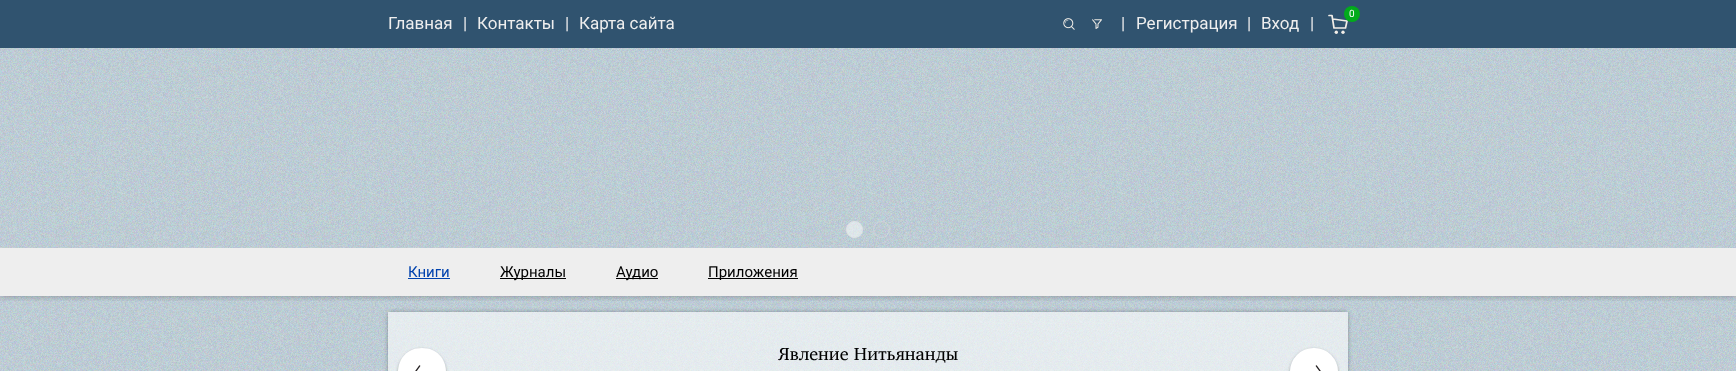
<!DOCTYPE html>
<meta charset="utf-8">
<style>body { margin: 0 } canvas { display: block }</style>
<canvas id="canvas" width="1736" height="371"></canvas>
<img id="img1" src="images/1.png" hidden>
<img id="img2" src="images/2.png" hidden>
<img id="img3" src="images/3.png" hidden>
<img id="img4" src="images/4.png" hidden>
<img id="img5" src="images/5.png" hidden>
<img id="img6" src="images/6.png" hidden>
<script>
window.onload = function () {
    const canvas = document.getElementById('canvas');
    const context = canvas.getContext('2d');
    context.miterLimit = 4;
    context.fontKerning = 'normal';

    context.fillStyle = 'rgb(255, 255, 255)';
    context.fillRect(0, 0, 1736, 371);
    context.drawImage(document.getElementById('img1'), 0, 48, 1736, 323);
    context.save();
    context.beginPath();
    context.rect(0, 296, 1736, 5);
    context.clip();
    context.fillStyle = 'rgba(0, 0, 0, 0.3)';
    context.filter = 'blur(3.5px)';
    context.beginPath();
    context.rect(0, 0, 1736, 296);
    context.fill();
    context.filter = 'none';
    context.restore();
    context.fillStyle = 'rgb(48, 83, 111)';
    context.fillRect(0, 0, 1736, 48);
    context.drawImage(document.getElementById('img2'), 1063, 18, 12, 12);
    context.drawImage(document.getElementById('img3'), 1092, 19, 10, 10);
    context.beginPath();
    context.moveTo(1333, 19);
    context.lineTo(1347, 21);
    context.lineTo(1345.5, 28);
    context.lineTo(1334, 28);
    context.lineTo(1332, 15.5);
    context.lineTo(1329, 15.5);
    context.strokeStyle = 'rgb(242, 238, 232)';
    context.lineWidth = 1.7;
    context.lineCap = 'round';
    context.lineJoin = 'round';
    context.stroke();
    context.fillStyle = 'rgb(242, 238, 232)';
    context.beginPath();
    context.arc(1343, 32.3, 1.7, 0, 2 * Math.PI);
    context.fill();
    context.beginPath();
    context.arc(1336.3, 32.3, 1.7, 0, 2 * Math.PI);
    context.fill();
    context.fillStyle = 'rgb(2, 171, 27)';
    context.beginPath();
    context.arc(1352, 14, 8, 0, 2 * Math.PI);
    context.fill();
    context.fillStyle = 'rgba(255, 255, 255, 0.5)';
    context.beginPath();
    context.arc(854.5, 229.5, 8.5, 0, 2 * Math.PI);
    context.fill();
    context.beginPath();
    context.arc(854.5, 229.5, 8, 0, 2 * Math.PI);
    context.strokeStyle = 'rgba(221, 221, 221, 0.5)';
    context.lineWidth = 1;
    context.stroke();
    context.beginPath();
    context.arc(881.5, 229.5, 8, 0, 2 * Math.PI);
    context.stroke();
    context.fillStyle = 'rgb(238, 238, 238)';
    context.fillRect(0, 248, 1736, 48);
    context.fillStyle = 'rgb(0, 66, 174)';
    context.fillRect(408, 278, 42, 1);
    context.fillStyle = 'rgb(0, 0, 0)';
    context.fillRect(500, 278, 66, 1);
    context.fillRect(616, 278, 42, 1);
    context.fillRect(708, 278, 90, 1);
    context.fillStyle = 'rgba(0, 0, 0, 0.3)';
    context.filter = 'blur(2px)';
    context.beginPath();
    context.roundRect(388, 312, 960, 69, 4);
    context.fill();
    context.filter = 'none';
    context.drawImage(document.getElementById('img4'), 388, 312, 960, 59);
    context.filter = 'blur(1.5px)';
    context.beginPath();
    context.roundRect(398, 349, 48, 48, 24);
    context.fill();
    context.filter = 'none';
    context.fillStyle = 'rgb(255, 255, 255)';
    context.beginPath();
    context.moveTo(422, 348);
    context.bezierCurveTo(390, 348, 390, 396, 422, 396);
    context.bezierCurveTo(454, 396, 454, 348, 422, 348);
    context.closePath();
    context.fill();
    context.drawImage(document.getElementById('img5'), 415, 365, 6, 6);
    context.fillStyle = 'rgba(0, 0, 0, 0.3)';
    context.filter = 'blur(1.5px)';
    context.beginPath();
    context.roundRect(1290, 349, 48, 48, 24);
    context.fill();
    context.filter = 'none';
    context.fillStyle = 'rgb(255, 255, 255)';
    context.beginPath();
    context.roundRect(1290, 348, 48, 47, 24);
    context.fill();
    context.drawImage(document.getElementById('img6'), 1315, 365, 6, 6);
    context.font = '17px Roboto';
    context.fillStyle = 'rgb(238, 238, 238)';
    context.fillText('Главная', 388, 29);
    context.fillText('|', 463, 29);
    context.fillText('Контакты', 477, 29);
    context.fillText('|', 565, 29);
    context.fillText('Карта сайта', 579, 29);
    context.fillText('|', 1121, 29);
    context.fillText('Регистрация', 1136, 29);
    context.fillText('|', 1247, 29);
    context.fillText('Вход', 1261, 29);
    context.font = '10px Roboto';
    context.fillStyle = 'rgb(255, 255, 255)';
    context.fillText('0', 1349, 17);
    context.font = '17px Roboto';
    context.fillStyle = 'rgb(238, 238, 238)';
    context.fillText('|', 1310, 29);
    context.font = '15px Roboto';
    context.fillStyle = 'rgb(0, 66, 174)';
    context.fillText('Книги', 408, 277);
    context.fillStyle = 'rgb(0, 0, 0)';
    context.fillText('Журналы', 500, 277);
    context.fillText('Аудио', 616, 277);
    context.fillText('Приложения', 708, 277);
    context.font = '18px Charis SIL';
    context.fillText('Явление Нитьянанды', 778, 360);
};
</script>
